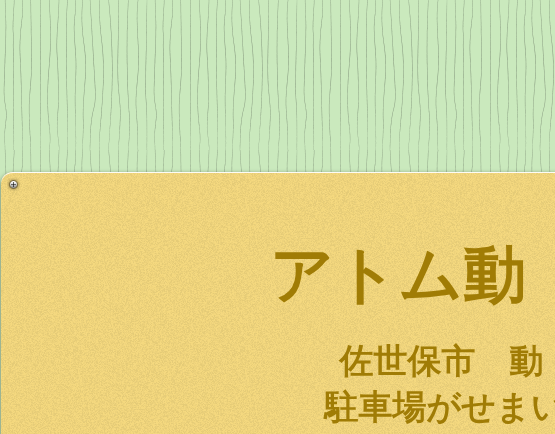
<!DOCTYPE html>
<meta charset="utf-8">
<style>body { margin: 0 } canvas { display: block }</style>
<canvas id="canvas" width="555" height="434"></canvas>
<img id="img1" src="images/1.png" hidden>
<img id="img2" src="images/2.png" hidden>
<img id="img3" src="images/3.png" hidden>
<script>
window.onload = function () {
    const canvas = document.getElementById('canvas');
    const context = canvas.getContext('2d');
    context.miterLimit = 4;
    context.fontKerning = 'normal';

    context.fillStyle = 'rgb(202, 233, 189)';
    context.fillRect(0, 0, 555, 434);
    context.drawImage(document.getElementById('img1'), 3, 0, 551, 176);
    context.fillStyle = 'rgba(0, 0, 0, 0.53)';
    context.filter = 'blur(2.5px)';
    context.beginPath();
    context.roundRect(1, 174, 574, 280, 12);
    context.fill();
    context.filter = 'none';
    context.fillStyle = 'rgb(245, 217, 126)';
    context.beginPath();
    context.roundRect(1, 172, 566, 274, 12);
    context.fill();
    context.drawImage(document.getElementById('img2'), 1, 172, 554, 262);
    context.fillStyle = 'rgba(255, 255, 255, 0.92)';
    context.beginPath();
    context.moveTo(13, 173);
    context.lineTo(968, 173);
    context.bezierCurveTo(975, 173, 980, 178, 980, 185);
    context.lineTo(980, 184);
    context.bezierCurveTo(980, 177, 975, 172, 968, 172);
    context.lineTo(13, 172);
    context.bezierCurveTo(6, 172, 1, 177, 1, 184);
    context.lineTo(1, 185);
    context.bezierCurveTo(1, 178, 6, 173, 13, 173);
    context.closePath();
    context.fill();
    context.drawImage(document.getElementById('img3'), 7, 178, 13, 13);
    context.font = 'bold 63px WenQuanYi Zen Hei';
    context.fillStyle = 'rgb(160, 124, 5)';
    context.fillText('アトム動', 269, 297);
    context.font = 'bold 34px WenQuanYi Zen Hei';
    context.fillText('佐世保市　動', 339, 373);
    context.fillText('駐車場がせまい', 324, 419);
};
</script>
